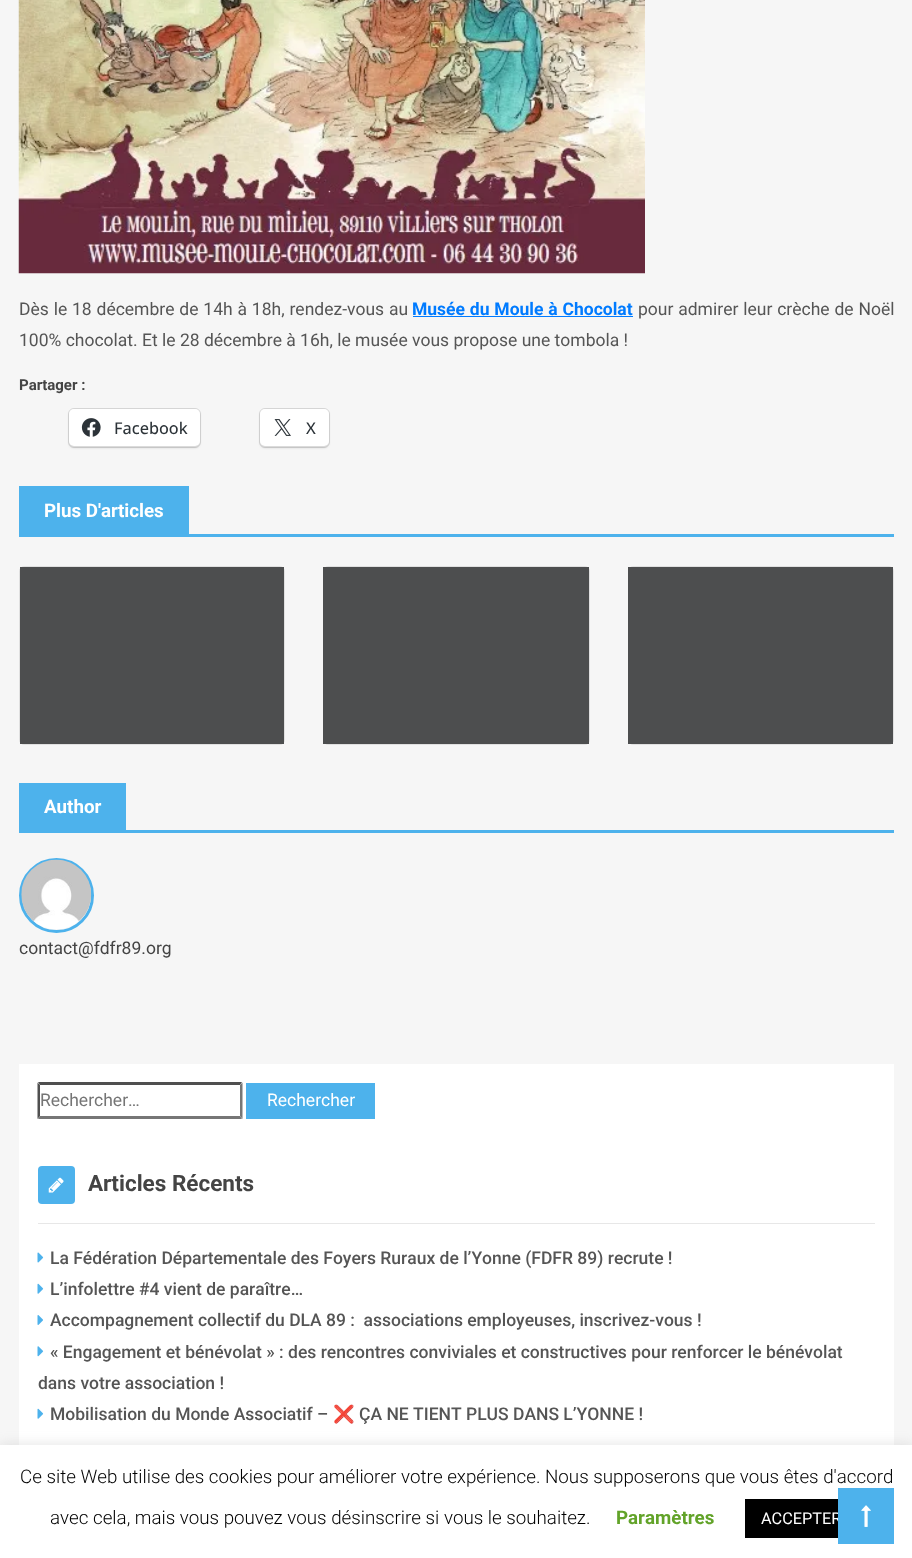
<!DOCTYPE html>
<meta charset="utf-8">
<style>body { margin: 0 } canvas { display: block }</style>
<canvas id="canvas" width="912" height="1558"></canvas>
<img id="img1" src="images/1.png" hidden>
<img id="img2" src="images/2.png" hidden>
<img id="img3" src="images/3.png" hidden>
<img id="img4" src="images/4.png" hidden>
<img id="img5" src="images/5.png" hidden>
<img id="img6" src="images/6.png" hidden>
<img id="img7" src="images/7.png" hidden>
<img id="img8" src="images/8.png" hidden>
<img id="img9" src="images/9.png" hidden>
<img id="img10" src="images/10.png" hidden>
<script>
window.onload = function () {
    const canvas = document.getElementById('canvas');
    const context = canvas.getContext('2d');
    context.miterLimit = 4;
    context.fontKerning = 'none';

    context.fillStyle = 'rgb(246, 246, 246)';
    context.fillRect(0, 0, 912, 1558);
    context.drawImage(document.getElementById('img1'), 18, 0, 627, 274);
    context.fillStyle = 'rgb(0, 123, 255)';
    context.fillRect(413, 316, 220, 1);
    context.beginPath();
    context.roundRect(68.5, 408.5, 132, 39, 5.5);
    context.strokeStyle = 'rgb(216, 216, 216)';
    context.stroke();
    context.fillStyle = 'rgba(0, 0, 0, 0.12)';
    context.filter = 'blur(1px)';
    context.beginPath();
    context.roundRect(69, 410, 131, 38, 5);
    context.fill();
    context.filter = 'none';
    context.fillStyle = 'rgb(255, 255, 255)';
    context.beginPath();
    context.roundRect(69, 409, 131, 37, 5);
    context.fill();
    context.drawImage(document.getElementById('img2'), 81, 418, 20, 19);
    context.beginPath();
    context.roundRect(259.5, 408.5, 70, 39, 5.5);
    context.stroke();
    context.fillStyle = 'rgba(0, 0, 0, 0.12)';
    context.filter = 'blur(1px)';
    context.beginPath();
    context.roundRect(260, 410, 69, 38, 5);
    context.fill();
    context.filter = 'none';
    context.fillStyle = 'rgb(255, 255, 255)';
    context.beginPath();
    context.roundRect(260, 409, 69, 37, 5);
    context.fill();
    context.drawImage(document.getElementById('img3'), 274, 419, 17, 17);
    context.fillStyle = 'rgb(77, 178, 236)';
    context.fillRect(19, 534, 875, 3);
    context.fillRect(19, 486, 170, 48);
    context.fillStyle = 'rgb(255, 255, 255)';
    context.beginPath();
    context.roundRect(19, 566, 266, 179, 5);
    context.fill();
    context.beginPath();
    context.roundRect(19.5, 566.5, 265, 178, 4.5);
    context.strokeStyle = 'rgba(0, 0, 0, 0.12)';
    context.stroke();
    context.fillStyle = 'rgb(77, 78, 79)';
    context.fillRect(20, 567, 264, 177);
    context.fillStyle = 'rgb(255, 255, 255)';
    context.beginPath();
    context.roundRect(323, 566, 267, 179, 5);
    context.fill();
    context.beginPath();
    context.roundRect(323.5, 566.5, 266, 178, 4.5);
    context.stroke();
    context.fillStyle = 'rgb(77, 78, 79)';
    context.fillRect(323, 567, 266, 177);
    context.fillStyle = 'rgb(255, 255, 255)';
    context.beginPath();
    context.roundRect(628, 566, 266, 179, 5);
    context.fill();
    context.beginPath();
    context.roundRect(628.5, 566.5, 265, 178, 4.5);
    context.stroke();
    context.fillStyle = 'rgb(77, 78, 79)';
    context.fillRect(628, 567, 265, 177);
    context.fillStyle = 'rgb(77, 178, 236)';
    context.fillRect(19, 830, 875, 3);
    context.fillRect(19, 783, 107, 47);
    context.beginPath();
    context.arc(56.5, 895.5, 36, 0, 2 * Math.PI);
    context.strokeStyle = 'rgb(77, 178, 236)';
    context.lineWidth = 3;
    context.stroke();
    context.drawImage(document.getElementById('img4'), 21, 859, 71, 71);
    context.fillStyle = 'rgb(255, 255, 255)';
    context.fillRect(19, 1064, 875, 381);
    context.fillStyle = 'rgb(79, 79, 79)';
    context.beginPath();
    context.moveTo(38, 1082);
    context.lineTo(242, 1082);
    context.lineTo(240, 1085);
    context.lineTo(40, 1085);
    context.closePath();
    context.fill();
    context.fillStyle = 'rgb(118, 118, 118)';
    context.beginPath();
    context.moveTo(242.5, 1082.5);
    context.lineTo(242.5, 1119);
    context.lineTo(240, 1116);
    context.lineTo(240, 1085);
    context.closePath();
    context.fill();
    context.beginPath();
    context.moveTo(242, 1119);
    context.lineTo(38, 1119);
    context.lineTo(40, 1116);
    context.lineTo(240, 1116);
    context.closePath();
    context.fill();
    context.fillStyle = 'rgb(79, 79, 79)';
    context.beginPath();
    context.moveTo(37.5, 1119);
    context.lineTo(37.5, 1082.5);
    context.lineTo(40, 1085);
    context.lineTo(40, 1116);
    context.closePath();
    context.fill();
    context.fillStyle = 'rgb(77, 178, 236)';
    context.fillRect(246, 1083, 129, 36);
    context.fillStyle = 'rgb(231, 231, 231)';
    context.fillRect(38, 1223, 837, 1);
    context.fillStyle = 'rgb(77, 178, 236)';
    context.beginPath();
    context.roundRect(38, 1166, 37, 38, 4);
    context.fill();
    context.drawImage(document.getElementById('img5'), 48, 1177, 16, 16);
    context.drawImage(document.getElementById('img6'), 37, 1252, 7, 11);
    context.drawImage(document.getElementById('img7'), 37, 1283, 7, 11);
    context.drawImage(document.getElementById('img8'), 37, 1315, 6, 10);
    context.drawImage(document.getElementById('img9'), 37, 1346, 7, 11);
    context.drawImage(document.getElementById('img7'), 37, 1408, 7, 11);
    context.fillStyle = 'rgba(172, 171, 171, 0.3)';
    context.filter = 'blur(6px)';
    context.beginPath();
    context.rect(0, 1444, 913, 114);
    context.fill();
    context.filter = 'none';
    context.fillStyle = 'rgb(255, 255, 255)';
    context.fillRect(0, 1445, 912, 113);
    context.fillStyle = 'rgb(0, 0, 0)';
    context.fillRect(745, 1499, 93, 39);
    context.wordSpacing = '0.5px';
    context.font = '17.5px Roboto';
    context.fillStyle = 'rgb(85, 85, 85)';
    context.fillText('Dès le 18 décembre de 14h à 18h, rendez-vous au', 19, 315);
    context.font = 'bold 17.5px Roboto';
    context.fillStyle = 'rgb(0, 123, 255)';
    context.fillText('Musée du Moule à Chocolat', 412, 315);
    context.font = '17.5px Roboto';
    context.fillStyle = 'rgb(85, 85, 85)';
    context.fillText('pour admirer leur crèche de Noël', 638, 315);
    context.wordSpacing = '0px';
    context.fillText('100% chocolat. Et le 28 décembre à 16h, le musée vous propose une tombola !', 19, 346);
    context.font = 'bold 15px Roboto';
    context.fillStyle = 'rgb(68, 68, 68)';
    context.fillText('Partager :', 19, 390);
    context.font = '500 16.25px Open Sans';
    context.fillStyle = 'rgb(44, 51, 56)';
    context.fillText('Facebook', 114, 434);
    context.fillText('X', 306, 434);
    context.font = 'bold 18.75px Roboto';
    context.fillStyle = 'rgb(255, 255, 255)';
    context.fillText('Plus D\'articles', 44, 517);
    context.fillText('Author', 44, 813);
    context.font = '17.5px Roboto';
    context.fillStyle = 'rgb(68, 68, 68)';
    context.fillText('contact@fdfr89.org', 19, 954);
    context.fillStyle = 'rgb(117, 117, 117)';
    context.fillText('Rechercher…', 40, 1106);
    context.fillStyle = 'rgb(255, 255, 255)';
    context.fillText('Rechercher', 267, 1106);
    context.font = 'bold 22.5px Roboto';
    context.fillStyle = 'rgb(68, 68, 68)';
    context.fillText('Articles Récents', 88, 1191);
    context.font = '500 17.5px Roboto';
    context.fillStyle = 'rgb(85, 85, 85)';
    context.fillText('La Fédération Départementale des Foyers Ruraux de l’Yonne (FDFR 89) recrute !', 50, 1264);
    context.fillText('L’infolettre #4 vient de paraître…', 50, 1295);
    context.fillText('Accompagnement collectif du DLA 89 :  associations employeuses, inscrivez-vous !', 50, 1326);
    context.fillText('« Engagement et bénévolat » : des rencontres conviviales et constructives pour renforcer le bénévolat', 50, 1358);
    context.fillText('dans votre association !', 38, 1389);
    context.fillText('Mobilisation du Monde Associatif –', 50, 1420);
    context.font = '17.5px Noto Color Emoji';
    context.fillText('❌', 333, 1420);
    context.font = '500 17.5px Roboto';
    context.fillText('ÇA NE TIENT PLUS DANS L’YONNE !', 359, 1420);
    context.font = '300 18.75px Roboto';
    context.fillStyle = 'rgb(0, 0, 0)';
    context.fillText('Ce site Web utilise des cookies pour améliorer votre expérience. Nous supposerons que vous êtes d\'accord', 20, 1483);
    context.fillText('avec cela, mais vous pouvez vous désinscrire si vous le souhaitez.', 50, 1524);
    context.font = 'bold 18.75px Roboto';
    context.fillStyle = 'rgb(98, 163, 41)';
    context.fillText('Paramètres', 616, 1524);
    context.font = '16.25px Roboto';
    context.fillStyle = 'rgb(255, 255, 255)';
    context.fillText('ACCEPTER', 761, 1524);
    context.fillStyle = 'rgb(77, 178, 236)';
    context.fillRect(838, 1488, 56, 56);
    context.drawImage(document.getElementById('img10'), 861, 1505, 10, 22);
};
</script>
